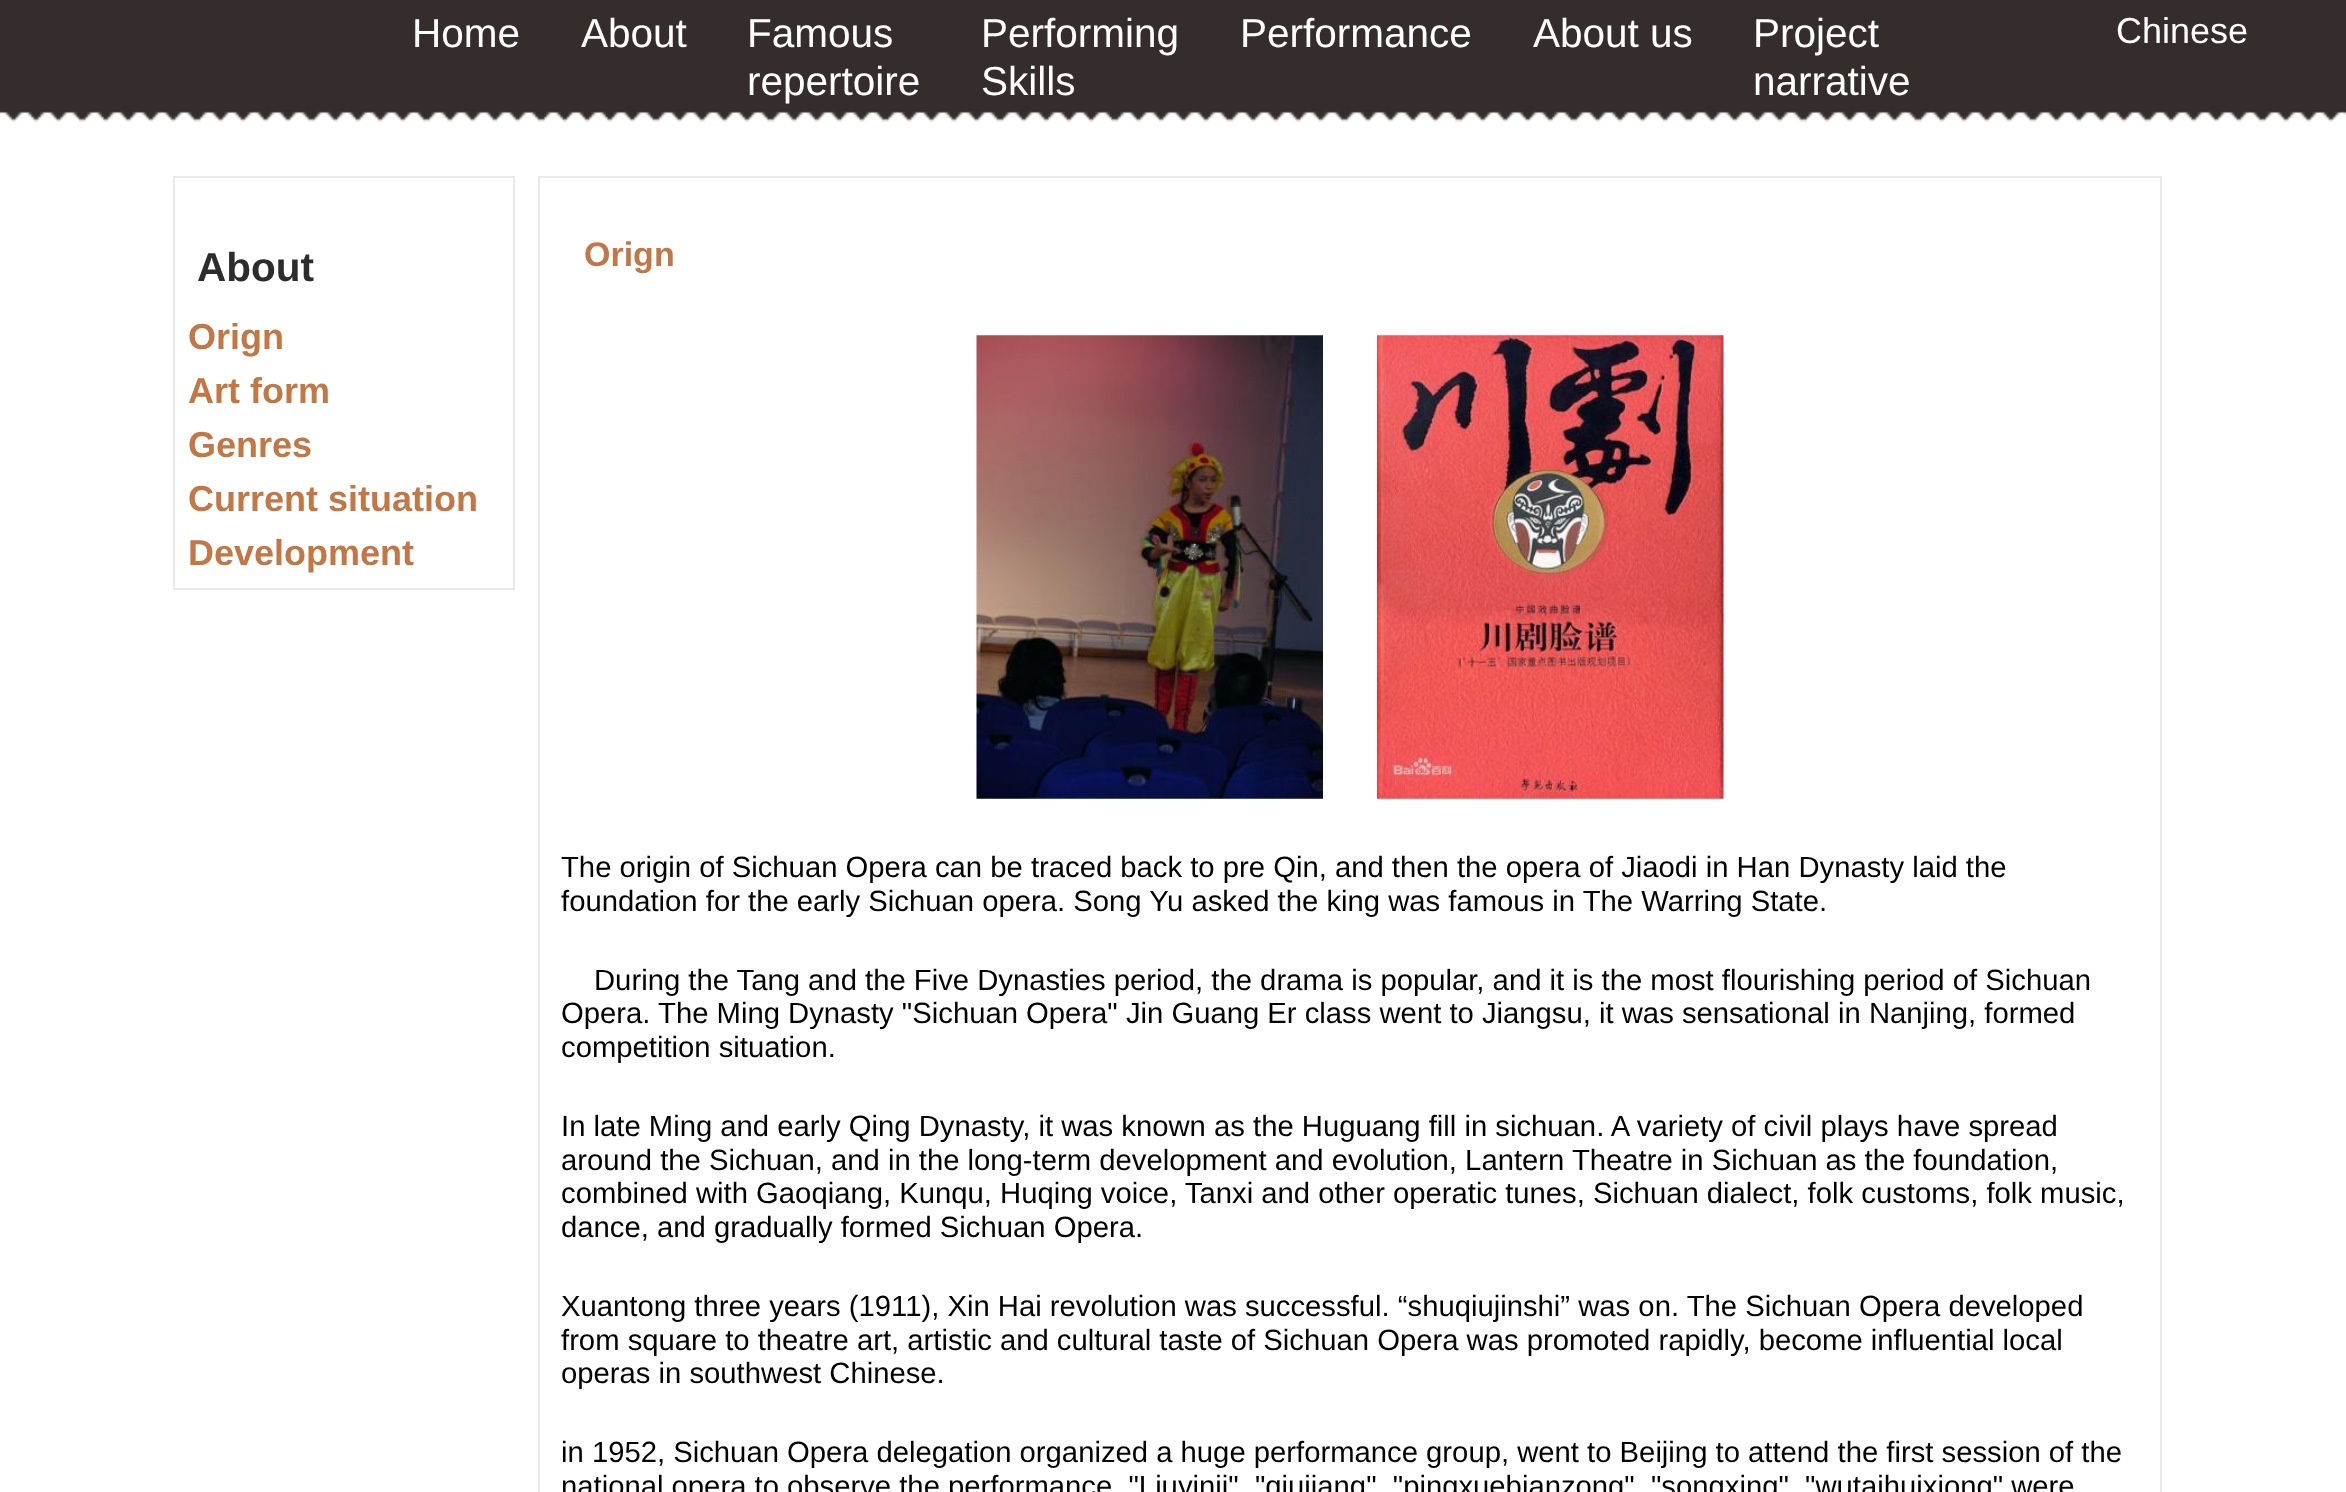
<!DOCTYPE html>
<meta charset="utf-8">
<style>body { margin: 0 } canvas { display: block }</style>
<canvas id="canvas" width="2346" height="1492"></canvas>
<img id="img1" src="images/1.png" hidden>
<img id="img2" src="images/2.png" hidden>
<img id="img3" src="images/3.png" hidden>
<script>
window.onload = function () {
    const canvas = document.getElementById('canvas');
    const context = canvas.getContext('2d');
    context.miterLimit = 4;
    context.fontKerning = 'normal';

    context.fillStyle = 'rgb(255, 255, 255)';
    context.fillRect(0, 0, 2346, 1492);
    context.drawImage(document.getElementById('img1'), 0, 0, 2346, 122);
    context.strokeStyle = 'rgb(233, 233, 233)';
    context.lineWidth = 2;
    context.strokeRect(174, 177, 340, 412);
    context.strokeRect(539, 177, 1622, 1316);
    context.drawImage(document.getElementById('img2'), 976, 335, 347, 464);
    context.drawImage(document.getElementById('img3'), 1377, 335, 347, 464);
    context.font = '40.5px Liberation Sans';
    context.fillText('Home', 412, 47);
    context.fillText('About', 581, 47);
    context.fillText('Famous', 747, 47);
    context.fillText('repertoire', 747, 95);
    context.fillText('Performing', 981, 47);
    context.fillText('Skills', 981, 95);
    context.fillText('Performance', 1240, 47);
    context.fillText('About us', 1533, 47);
    context.fillText('Project', 1753, 47);
    context.fillText('narrative', 1753, 95);
    context.font = '36px Liberation Sans';
    context.fillText('Chinese', 2116, 43);
    context.font = 'bold 40.5px Liberation Sans';
    context.fillStyle = 'rgb(44, 44, 44)';
    context.fillText('About', 197, 281);
    context.font = 'bold 36px Liberation Sans';
    context.fillStyle = 'rgb(194, 119, 68)';
    context.fillText('Orign', 188, 349);
    context.fillText('Art form', 188, 403);
    context.fillText('Genres', 188, 457);
    context.fillText('Current situation', 188, 511);
    context.fillText('Development', 188, 565);
    context.font = 'bold 34px Liberation Sans';
    context.fillText('Orign', 584, 266);
    context.font = '29.25px Liberation Sans';
    context.fillStyle = 'rgb(0, 0, 0)';
    context.fillText('The origin of Sichuan Opera can be traced back to pre Qin, and then the opera of Jiaodi in Han Dynasty laid the', 561, 877);
    context.fillText('foundation for the early Sichuan opera. Song Yu asked the king was famous in The Warring State.', 561, 911);
    context.fillText('During the Tang and the Five Dynasties period, the drama is popular, and it is the most flourishing period of Sichuan', 594, 990);
    context.fillText('Opera. The Ming Dynasty "Sichuan Opera" Jin Guang Er class went to Jiangsu, it was sensational in Nanjing, formed', 561, 1023);
    context.fillText('competition situation.', 561, 1057);
    context.fillText('In late Ming and early Qing Dynasty, it was known as the Huguang fill in sichuan. A variety of civil plays have spread', 561, 1136);
    context.fillText('around the Sichuan, and in the long-term development and evolution, Lantern Theatre in Sichuan as the foundation,', 561, 1170);
    context.fillText('combined with Gaoqiang, Kunqu, Huqing voice, Tanxi and other operatic tunes, Sichuan dialect, folk customs, folk music,', 561, 1203);
    context.fillText('dance, and gradually formed Sichuan Opera.', 561, 1237);
    context.fillText('Xuantong three years (1911), Xin Hai revolution was successful. “shuqiujinshi” was on. The Sichuan Opera developed', 561, 1316);
    context.fillText('from square to theatre art, artistic and cultural taste of Sichuan Opera was promoted rapidly, become influential local', 561, 1350);
    context.fillText('operas in southwest Chinese.', 561, 1383);
    context.fillText('in 1952, Sichuan Opera delegation organized a huge performance group, went to Beijing to attend the first session of the', 561, 1462);
    context.fillText('national opera to observe the performance, "Liuyinji", "qiujiang", "pingxuebianzong", "songxing", "wutaihuixiong" were', 561, 1496);
};
</script>
